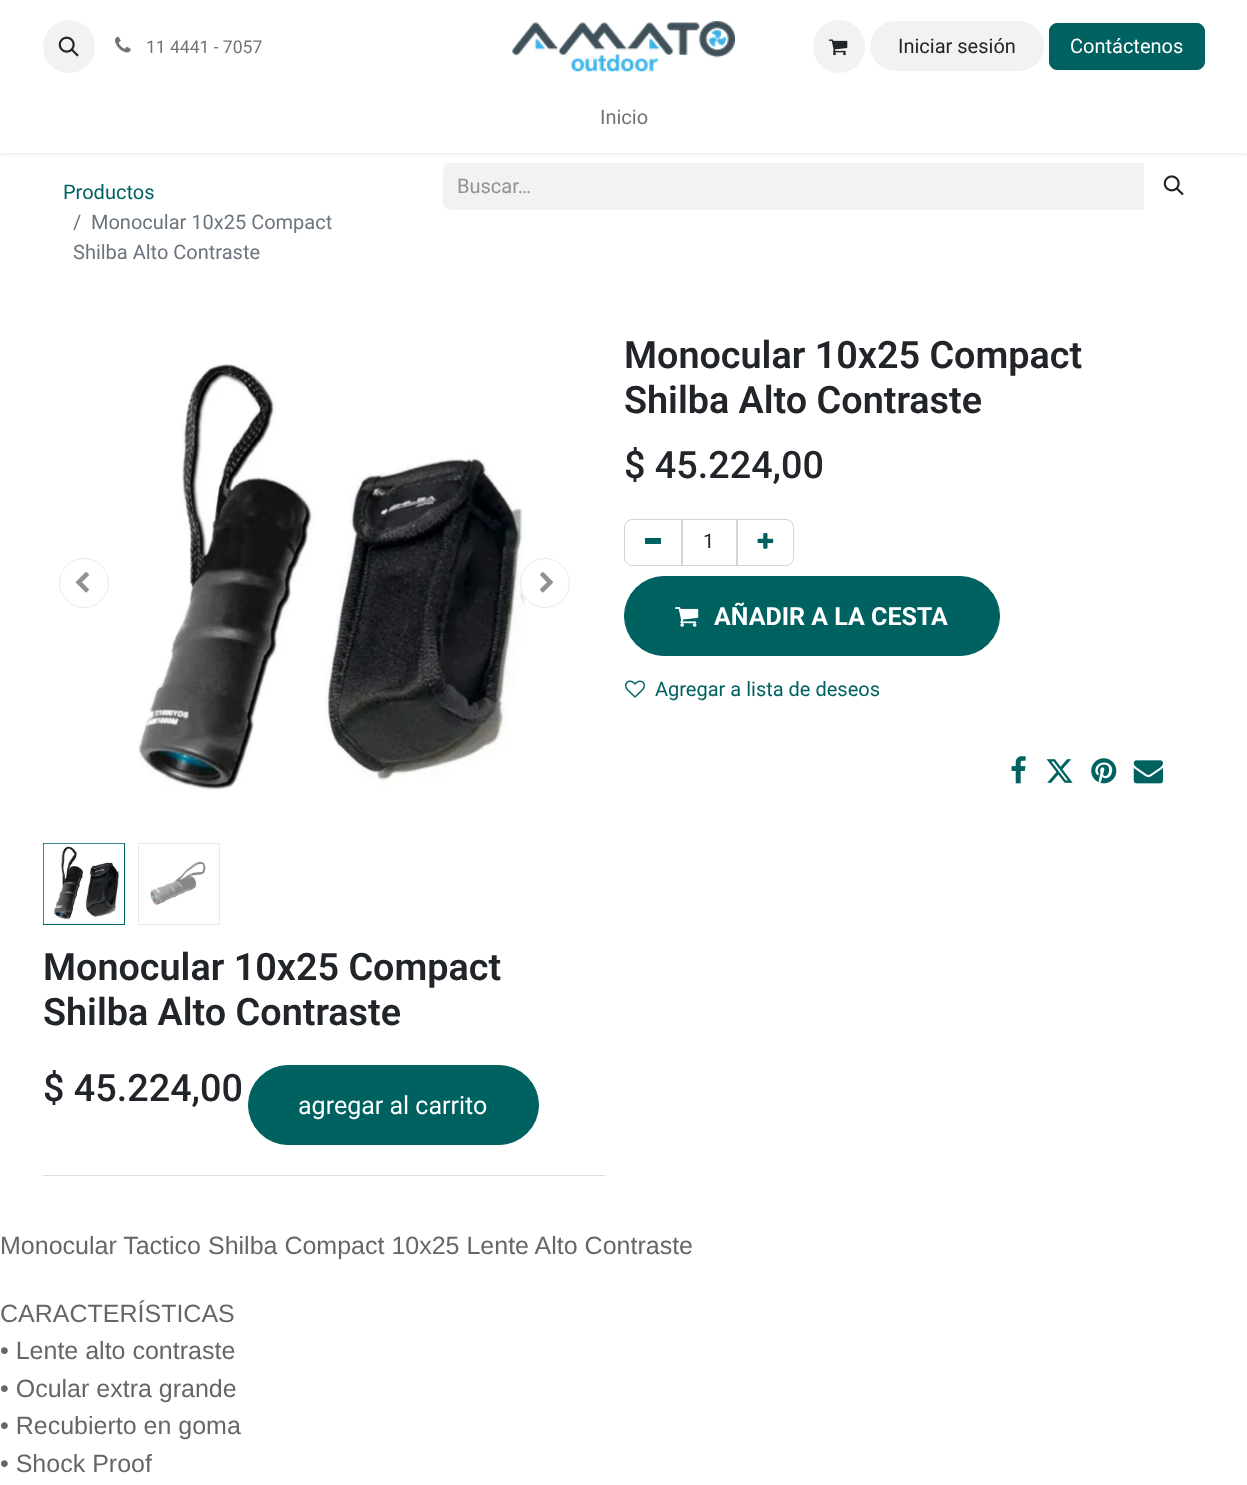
<!DOCTYPE html>
<meta charset="utf-8">
<style>body { margin: 0 } canvas { display: block }</style>
<canvas id="canvas" width="1247" height="1485"></canvas>
<img id="img1" src="images/1.png" hidden>
<img id="img2" src="images/2.png" hidden>
<img id="img3" src="images/3.png" hidden>
<img id="img4" src="images/4.png" hidden>
<img id="img5" src="images/5.png" hidden>
<img id="img6" src="images/6.png" hidden>
<img id="img7" src="images/7.png" hidden>
<img id="img8" src="images/8.png" hidden>
<img id="img9" src="images/9.png" hidden>
<img id="img10" src="images/10.png" hidden>
<img id="img11" src="images/11.png" hidden>
<img id="img12" src="images/12.png" hidden>
<img id="img13" src="images/13.png" hidden>
<img id="img14" src="images/14.png" hidden>
<img id="img15" src="images/15.png" hidden>
<img id="img16" src="images/16.png" hidden>
<img id="img17" src="images/17.png" hidden>
<script>
window.onload = function () {
    const canvas = document.getElementById('canvas');
    const context = canvas.getContext('2d');
    context.miterLimit = 4;
    context.fontKerning = 'normal';

    context.fillStyle = 'rgb(255, 255, 255)';
    context.fillRect(0, 0, 1247, 1485);
    context.fillStyle = 'rgba(0, 0, 0, 0.1)';
    context.filter = 'blur(2px)';
    context.beginPath();
    context.rect(0, 1, 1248, 153);
    context.fill();
    context.filter = 'none';
    context.fillStyle = 'rgb(255, 255, 255)';
    context.fillRect(0, 0, 1247, 153);
    context.fillStyle = 'rgb(242, 242, 242)';
    context.beginPath();
    context.roundRect(43, 20, 52, 53, 26);
    context.fill();
    context.drawImage(document.getElementById('img1'), 58, 36, 21, 21);
    context.drawImage(document.getElementById('img2'), 115, 36, 16, 17);
    context.drawImage(document.getElementById('img3'), 512, 21, 223, 51);
    context.beginPath();
    context.roundRect(813, 20, 52, 53, 26);
    context.fill();
    context.drawImage(document.getElementById('img4'), 828, 39, 20, 17);
    context.beginPath();
    context.roundRect(870, 21, 174, 50, 25);
    context.fill();
    context.fillStyle = 'rgb(0, 97, 97)';
    context.beginPath();
    context.roundRect(1049.5, 23.5, 155, 46, 7.5);
    context.fill();
    context.strokeStyle = 'rgb(0, 97, 97)';
    context.stroke();
    context.fillStyle = 'rgb(243, 242, 242)';
    context.beginPath();
    context.roundRect(443, 163, 701, 47, [8, 0, 0, 8]);
    context.fill();
    context.drawImage(document.getElementById('img5'), 1163, 175, 21, 21);
    context.beginPath();
    context.arc(84, 583, 24.5, 0, 2 * Math.PI);
    context.strokeStyle = 'rgb(231, 234, 237)';
    context.stroke();
    context.drawImage(document.getElementById('img6'), 75, 572, 14, 21);
    context.drawImage(document.getElementById('img7'), 138, 364, 388, 426);
    context.fillStyle = 'rgba(255, 255, 255, 0.5)';
    context.beginPath();
    context.arc(545, 583, 25, 0, 2 * Math.PI);
    context.fill();
    context.beginPath();
    context.arc(545, 583, 24.5, 0, 2 * Math.PI);
    context.strokeStyle = 'rgba(206, 212, 218, 0.5)';
    context.stroke();
    context.drawImage(document.getElementById('img8'), 540, 572, 14, 21);
    context.strokeStyle = 'rgb(0, 97, 97)';
    context.strokeRect(43.5, 843.5, 81, 81);
    context.drawImage(document.getElementById('img9'), 43, 843, 81, 81);
    context.strokeStyle = 'rgb(231, 234, 237)';
    context.strokeRect(138.5, 843.5, 81, 81);
    context.drawImage(document.getElementById('img10'), 150, 862, 56, 43);
    context.strokeStyle = 'rgb(206, 212, 218)';
    context.strokeRect(681.5, 519.5, 56, 46);
    context.beginPath();
    context.roundRect(624.5, 519.5, 58, 46, [7.5, 0, 0, 7.5]);
    context.stroke();
    context.fillStyle = 'rgb(0, 97, 97)';
    context.fillRect(645, 538, 16, 6);
    context.beginPath();
    context.roundRect(736.5, 519.5, 57, 46, [0, 7.5, 7.5, 0]);
    context.stroke();
    context.drawImage(document.getElementById('img11'), 757, 533, 17, 16);
    context.beginPath();
    context.roundRect(624.5, 576.5, 375, 79, 39.5);
    context.fill();
    context.strokeStyle = 'rgb(0, 97, 97)';
    context.stroke();
    context.drawImage(document.getElementById('img12'), 675, 607, 24, 20);
    context.drawImage(document.getElementById('img13'), 625, 680, 20, 18);
    context.drawImage(document.getElementById('img14'), 1011, 756, 15, 28);
    context.drawImage(document.getElementById('img15'), 1046, 759, 27, 24);
    context.drawImage(document.getElementById('img16'), 1091, 758, 26, 26);
    context.drawImage(document.getElementById('img17'), 1133, 760, 30, 24);
    context.beginPath();
    context.roundRect(248.5, 1065.5, 290, 79, 39.5);
    context.fill();
    context.stroke();
    context.fillStyle = 'rgb(222, 222, 223)';
    context.fillRect(43, 1175, 562, 1);
    context.font = '17.5px Roboto';
    context.fillStyle = 'rgb(115, 115, 115)';
    context.fillText('11 4441 - 7057', 146, 53);
    context.font = '20px Roboto';
    context.fillStyle = 'rgb(33, 37, 41)';
    context.fillText('Iniciar sesión', 898, 53);
    context.fillStyle = 'rgb(255, 255, 255)';
    context.fillText('Contáctenos', 1070, 53);
    context.fillStyle = 'rgb(115, 115, 115)';
    context.fillText('Inicio', 600, 124);
    context.fillStyle = 'rgb(0, 97, 97)';
    context.fillText('Productos', 63, 199);
    context.fillStyle = 'rgb(108, 117, 125)';
    context.fillText('/', 73, 229);
    context.fillText('Monocular 10x25 Compact', 91, 229);
    context.fillText('Shilba Alto Contraste', 73, 259);
    context.fillStyle = 'rgb(144, 146, 148)';
    context.fillText('Buscar…', 457, 193);
    context.font = '600 37.75px Roboto';
    context.fillStyle = 'rgb(33, 37, 41)';
    context.fillText('Monocular 10x25 Compact', 624, 368);
    context.fillText('Shilba Alto Contraste', 624, 413);
    context.font = '500 37.75px Roboto';
    context.fillText('$ 45.224,00', 624, 478);
    context.font = '20px Roboto';
    context.fillText('1', 703, 548);
    context.font = 'bold 25px Roboto';
    context.fillStyle = 'rgb(255, 255, 255)';
    context.fillText('AÑADIR A LA CESTA', 714, 625);
    context.font = '20px Roboto';
    context.fillStyle = 'rgb(0, 97, 97)';
    context.fillText('Agregar a lista de deseos', 655, 696);
    context.font = '600 37.75px Roboto';
    context.fillStyle = 'rgb(33, 37, 41)';
    context.fillText('Monocular 10x25 Compact', 43, 980);
    context.fillText('Shilba Alto Contraste', 43, 1025);
    context.font = '500 37.75px Roboto';
    context.fillText('$ 45.224,00', 43, 1101);
    context.font = '25px Roboto';
    context.fillStyle = 'rgb(255, 255, 255)';
    context.fillText('agregar al carrito', 298, 1114);
    context.font = '25px Liberation Sans';
    context.fillStyle = 'rgb(102, 102, 102)';
    context.fillText('Monocular Tactico Shilba Compact 10x25 Lente Alto Contraste', 0, 1254);
    context.fillText('CARACTERÍSTICAS', 0, 1322);
    context.fillText('• Lente alto contraste', 0, 1359);
    context.fillText('• Ocular extra grande', 0, 1397);
    context.fillText('• Recubierto en goma', 0, 1434);
    context.fillText('• Shock Proof', 0, 1472);
};
</script>
